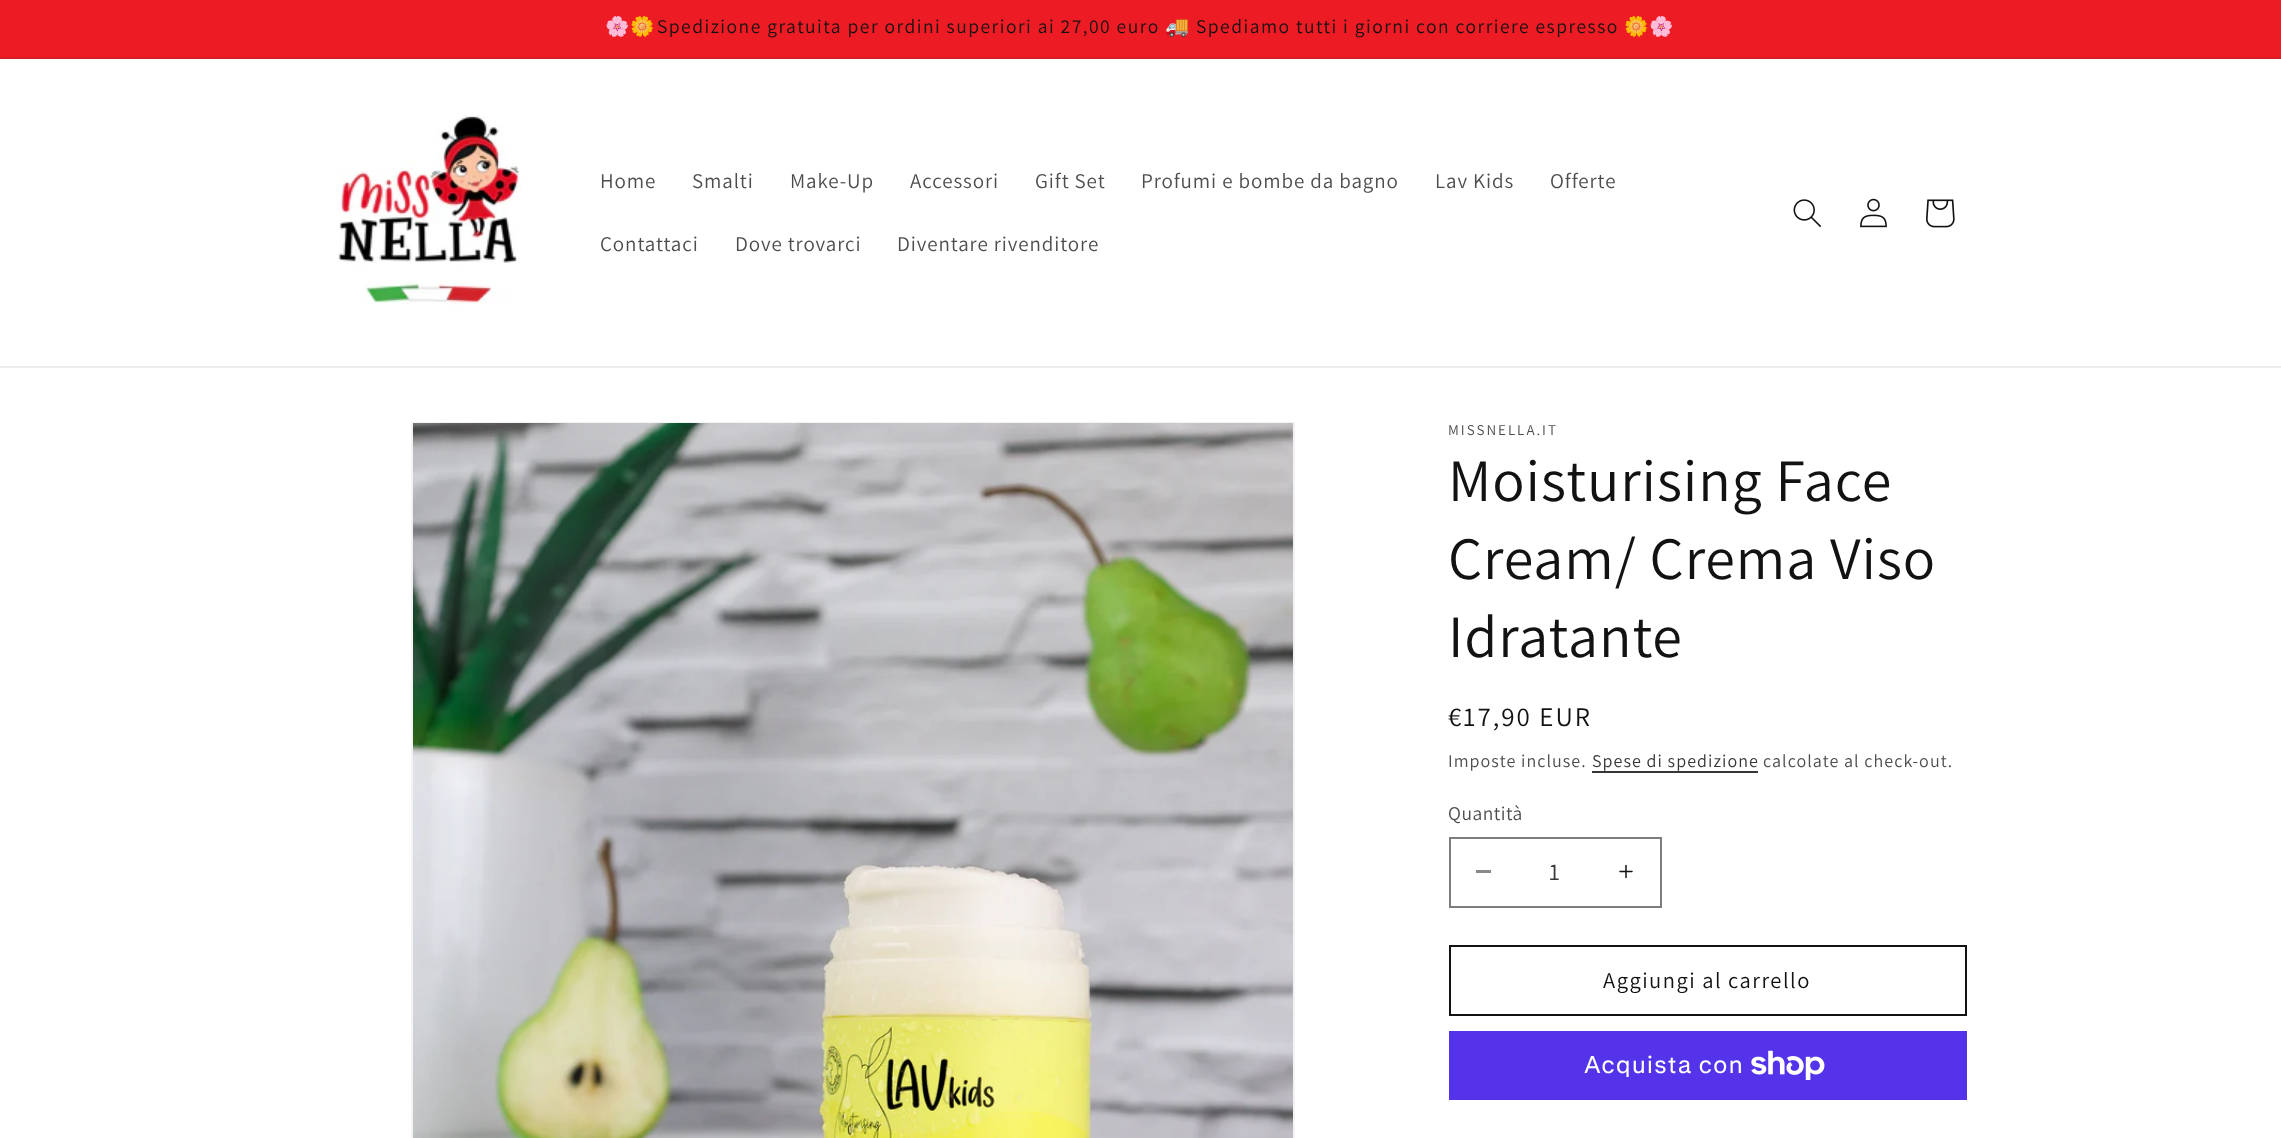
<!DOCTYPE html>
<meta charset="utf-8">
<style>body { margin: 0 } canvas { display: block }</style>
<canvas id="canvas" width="2281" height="1138"></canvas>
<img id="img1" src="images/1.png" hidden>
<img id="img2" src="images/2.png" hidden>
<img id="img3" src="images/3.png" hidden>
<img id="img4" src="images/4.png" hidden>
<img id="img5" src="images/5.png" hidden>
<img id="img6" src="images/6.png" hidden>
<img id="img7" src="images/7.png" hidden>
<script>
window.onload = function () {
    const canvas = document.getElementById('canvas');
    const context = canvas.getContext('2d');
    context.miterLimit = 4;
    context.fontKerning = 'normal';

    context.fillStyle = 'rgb(255, 255, 255)';
    context.fillRect(0, 0, 2281, 1138);
    context.fillStyle = 'rgb(237, 28, 36)';
    context.fillRect(0, 0, 2281, 57);
    context.fillStyle = 'rgb(219, 27, 35)';
    context.fillRect(0, 57, 2281, 2);
    context.fillStyle = 'rgb(236, 236, 236)';
    context.fillRect(0, 366, 2281, 2);
    context.drawImage(document.getElementById('img1'), 338, 115, 183, 190);
    context.drawImage(document.getElementById('img2'), 1793, 199, 28, 28);
    context.drawImage(document.getElementById('img3'), 1860, 198, 27, 30);
    context.drawImage(document.getElementById('img4'), 1926, 199, 29, 29);
    context.strokeStyle = 'rgb(243, 243, 243)';
    context.lineWidth = 2;
    context.strokeRect(412, 423, 882, 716);
    context.drawImage(document.getElementById('img5'), 413, 423, 880, 715);
    context.fillStyle = 'rgb(54, 54, 54)';
    context.fillRect(1592, 771, 166, 2);
    context.fillStyle = 'rgb(137, 137, 137)';
    context.fillRect(1476, 870, 15, 3);
    context.drawImage(document.getElementById('img6'), 1619, 864, 14, 15);
    context.strokeStyle = 'rgb(125, 125, 125)';
    context.strokeRect(1450, 838, 211, 69);
    context.strokeStyle = 'rgb(18, 18, 18)';
    context.strokeRect(1450, 946, 516, 69);
    context.fillStyle = 'rgb(84, 51, 235)';
    context.fillRect(1449, 1031, 518, 69);
    context.drawImage(document.getElementById('img7'), 1751, 1050, 74, 30);
    context.letterSpacing = '1.5px';
    context.font = '19.5px Noto Color Emoji';
    context.fillStyle = 'rgb(18, 18, 18)';
    context.fillText('🌸🌼', 605, 33);
    context.font = '19.5px Assistant';
    context.fillText('Spedizione gratuita per ordini superiori ai 27,00 euro', 657, 33);
    context.font = '19.5px Noto Color Emoji';
    context.fillText('🚚', 1165, 33);
    context.font = '19.5px Assistant';
    context.fillText('Spediamo tutti i giorni con corriere espresso', 1196, 33);
    context.font = '19.5px Noto Color Emoji';
    context.fillText('🌼🌸', 1624, 33);
    context.letterSpacing = '0.9px';
    context.font = '21px Assistant';
    context.fillStyle = 'rgb(77, 77, 77)';
    context.fillText('Home', 600, 188);
    context.fillText('Smalti', 692, 188);
    context.fillText('Make-Up', 790, 188);
    context.fillText('Accessori', 910, 188);
    context.fillText('Gift Set', 1035, 188);
    context.fillText('Profumi e bombe da bagno', 1141, 188);
    context.fillText('Lav Kids', 1435, 188);
    context.fillText('Offerte', 1550, 188);
    context.fillText('Contattaci', 600, 251);
    context.fillText('Dove trovarci', 735, 251);
    context.fillText('Diventare rivenditore', 897, 251);
    context.letterSpacing = '2px';
    context.font = '15px Assistant';
    context.fillText('MISSNELLA.IT', 1448, 435);
    context.letterSpacing = '0.9px';
    context.font = '60px Assistant';
    context.fillStyle = 'rgb(18, 18, 18)';
    context.fillText('Moisturising Face', 1448, 501);
    context.fillText('Cream/ Crema Viso', 1448, 579);
    context.fillText('Idratante', 1448, 657);
    context.letterSpacing = '2px';
    context.font = '27px Assistant';
    context.fillText('€17,90 EUR', 1448, 726);
    context.letterSpacing = '1.05px';
    context.font = '18px Assistant';
    context.fillStyle = 'rgb(77, 77, 77)';
    context.fillText('Imposte incluse.', 1448, 767);
    context.fillStyle = 'rgb(54, 54, 54)';
    context.fillText('Spese di spedizione', 1592, 767);
    context.fillStyle = 'rgb(77, 77, 77)';
    context.fillText('calcolate al check-out.', 1763, 767);
    context.letterSpacing = '0.5px';
    context.font = '19.5px Assistant';
    context.fillText('Quantità', 1448, 820);
    context.letterSpacing = '0px';
    context.font = '24px Assistant';
    context.fillStyle = 'rgb(54, 54, 54)';
    context.fillText('1', 1549, 880);
    context.letterSpacing = '1.5px';
    context.font = '22.5px Assistant';
    context.fillStyle = 'rgb(18, 18, 18)';
    context.fillText('Aggiungi al carrello', 1603, 988);
    context.letterSpacing = '0.9px';
    context.font = '24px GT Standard';
    context.fillStyle = 'rgb(255, 255, 255)';
    context.fillText('Acquista con', 1584, 1073);
};
</script>
